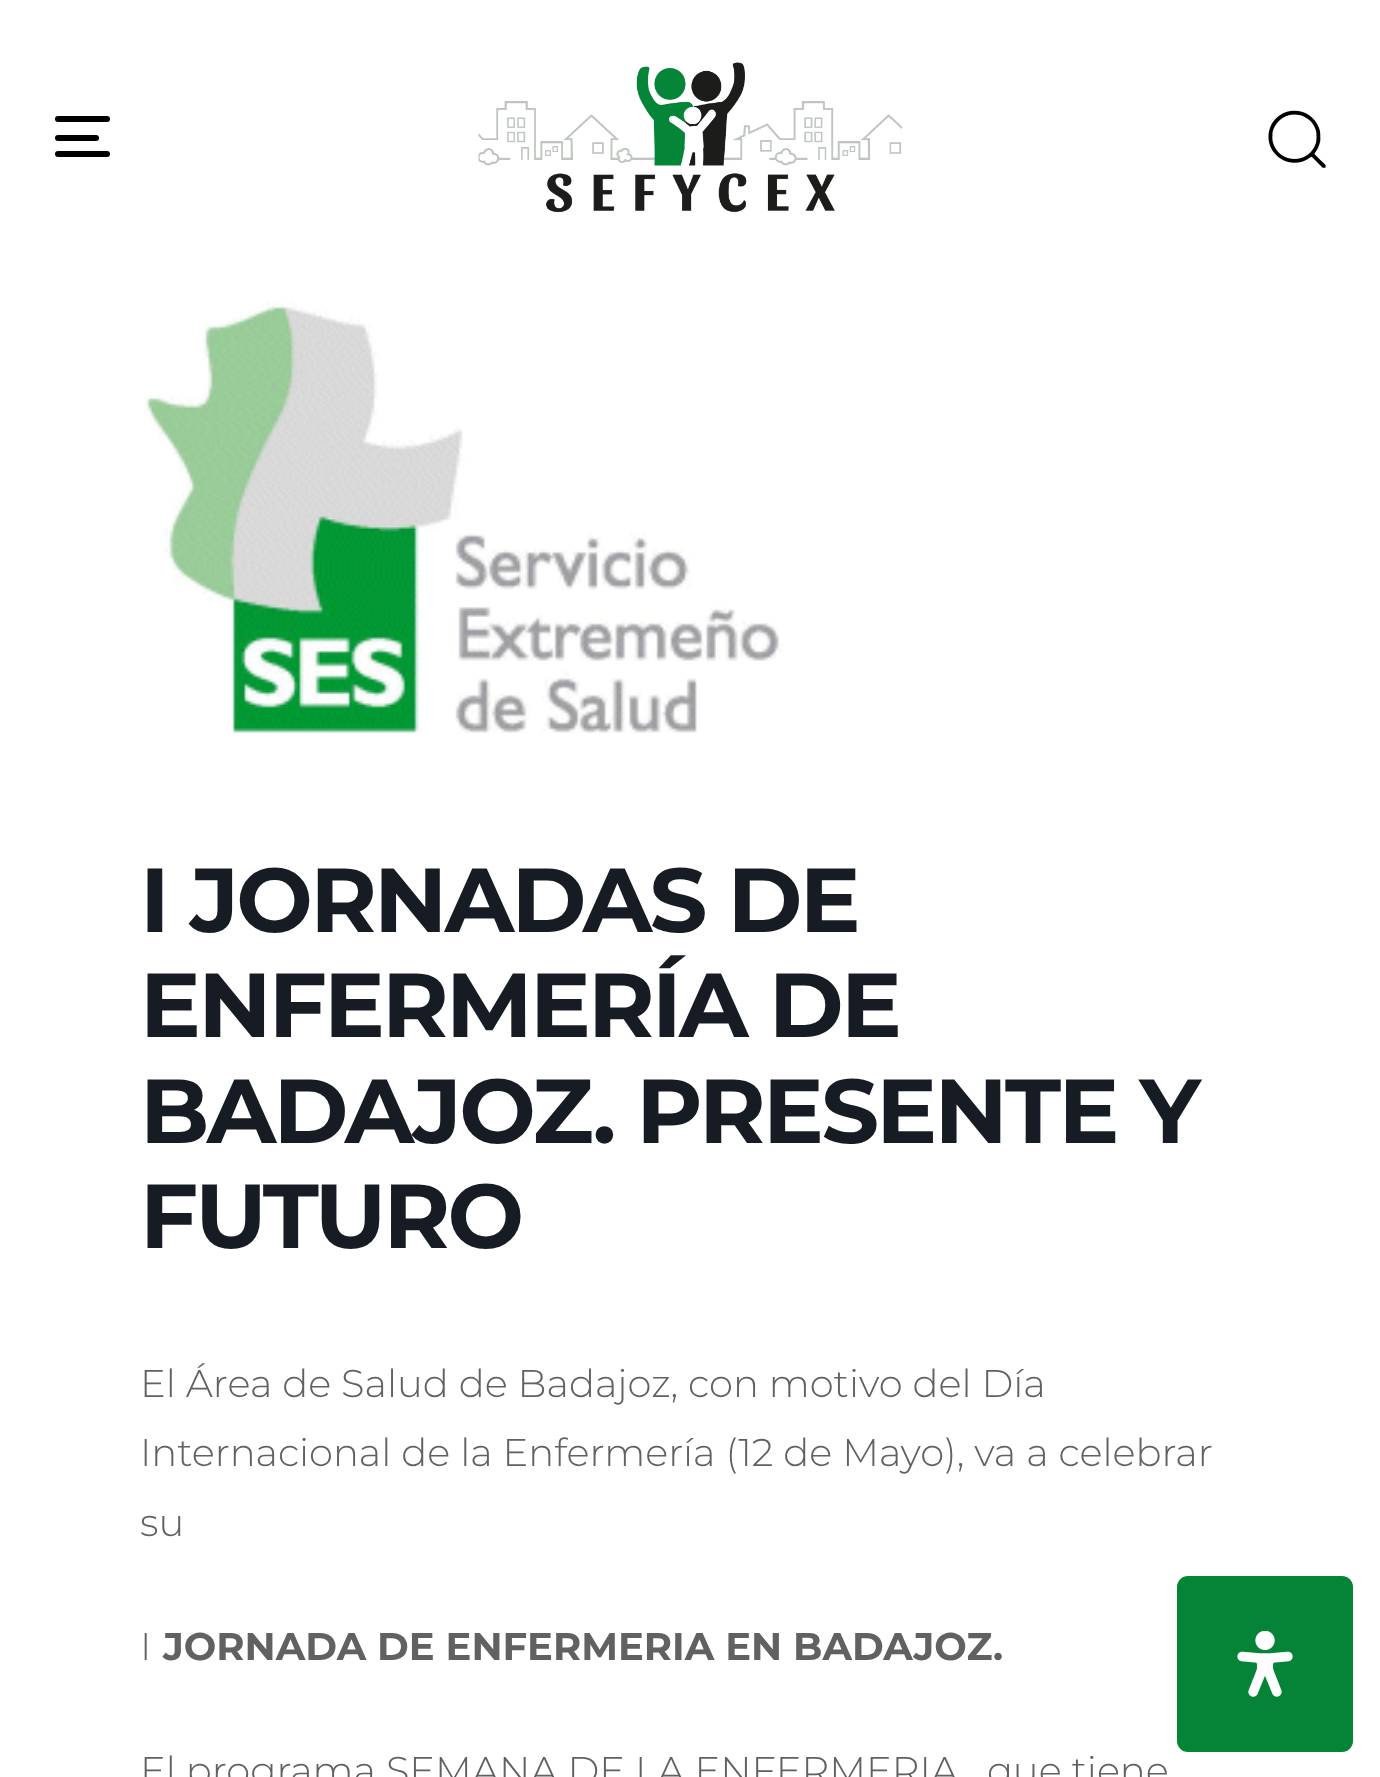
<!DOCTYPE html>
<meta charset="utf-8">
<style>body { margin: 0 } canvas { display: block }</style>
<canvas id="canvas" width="1380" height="1777"></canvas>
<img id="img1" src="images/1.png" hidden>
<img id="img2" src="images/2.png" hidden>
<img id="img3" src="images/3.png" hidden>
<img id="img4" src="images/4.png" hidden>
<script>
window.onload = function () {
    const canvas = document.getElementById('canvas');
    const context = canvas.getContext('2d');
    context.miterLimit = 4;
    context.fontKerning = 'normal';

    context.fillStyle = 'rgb(255, 255, 255)';
    context.fillRect(0, 0, 1380, 1777);
    context.fillStyle = 'rgb(0, 0, 0)';
    context.beginPath();
    context.roundRect(55, 116, 55, 6, 3);
    context.fill();
    context.beginPath();
    context.roundRect(55, 135, 44, 6, 3);
    context.fill();
    context.beginPath();
    context.roundRect(55, 151, 55, 6, 3);
    context.fill();
    context.drawImage(document.getElementById('img1'), 478, 62, 424, 151);
    context.drawImage(document.getElementById('img2'), 1268, 110, 58, 58);
    context.drawImage(document.getElementById('img3'), 143, 302, 641, 432);
    context.fillStyle = 'rgb(5, 132, 55)';
    context.beginPath();
    context.roundRect(1177, 1576, 176, 176, 11);
    context.fill();
    context.drawImage(document.getElementById('img4'), 1237, 1631, 56, 66);
    context.letterSpacing = '-2.75px';
    context.font = 'bold 90.75px Montserrat';
    context.fillStyle = 'rgb(23, 28, 36)';
    context.fillText('I JORNADAS DE', 140, 932);
    context.fillText('ENFERMERÍA DE', 140, 1037);
    context.fillText('BADAJOZ. PRESENTE Y', 140, 1143);
    context.fillText('FUTURO', 140, 1248);
    context.letterSpacing = '0px';
    context.font = '300 38.5px Montserrat';
    context.fillStyle = 'rgb(97, 97, 97)';
    context.fillText('El Área de Salud de Badajoz, con motivo del Día', 140, 1397);
    context.fillText('Internacional de la Enfermería (12 de Mayo), va a celebrar', 140, 1466);
    context.fillText('su', 140, 1536);
    context.fillText('I', 140, 1660);
    context.font = 'bold 38.5px Montserrat';
    context.fillText('JORNADA DE ENFERMERIA EN BADAJOZ.', 163, 1660);
    context.font = '300 38.5px Montserrat';
    context.fillText('El programa SEMANA DE LA ENFERMERIA,  que tiene', 140, 1784);
};
</script>
